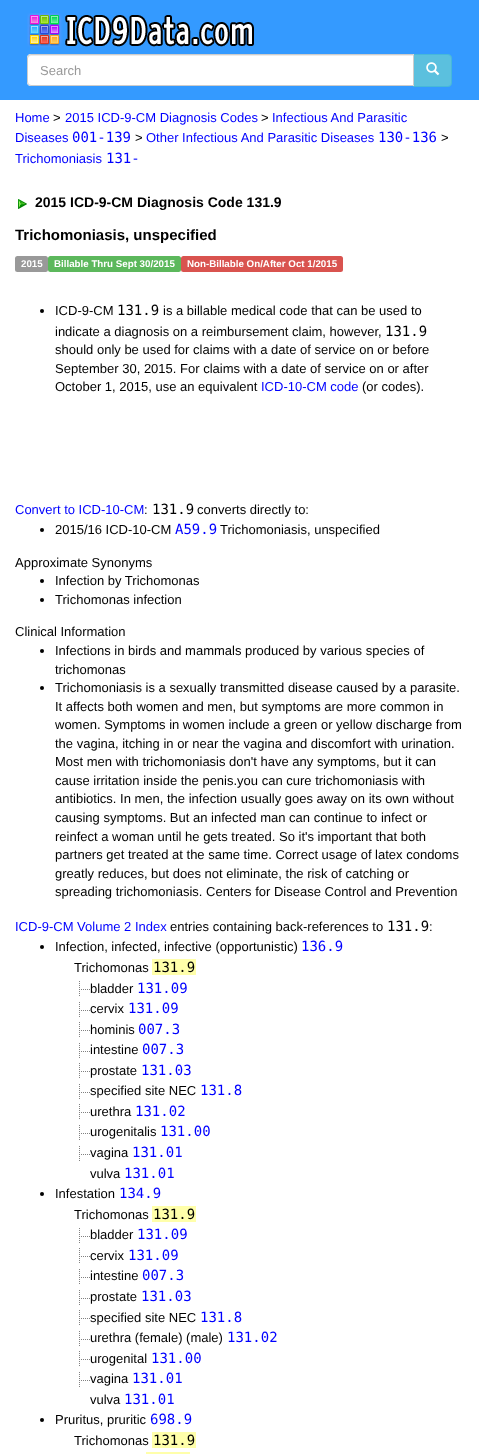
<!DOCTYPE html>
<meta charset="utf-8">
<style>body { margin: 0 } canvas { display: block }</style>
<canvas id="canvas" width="479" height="1454"></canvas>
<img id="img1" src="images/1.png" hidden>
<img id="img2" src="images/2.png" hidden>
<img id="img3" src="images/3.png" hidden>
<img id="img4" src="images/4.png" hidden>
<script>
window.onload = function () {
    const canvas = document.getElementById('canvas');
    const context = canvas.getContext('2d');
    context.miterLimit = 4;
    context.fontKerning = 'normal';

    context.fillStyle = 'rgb(255, 255, 255)';
    context.fillRect(0, 0, 479, 1454);
    context.fillStyle = 'rgb(52, 154, 255)';
    context.fillRect(0, 0, 479, 100);
    context.drawImage(document.getElementById('img1'), 27, 13, 227, 35);
    context.fillStyle = 'rgb(91, 192, 222)';
    context.beginPath();
    context.roundRect(413.5, 54.5, 38, 32, [0, 3.5, 3.5, 0]);
    context.fill();
    context.strokeStyle = 'rgb(70, 184, 218)';
    context.stroke();
    context.fillStyle = 'rgb(255, 255, 255)';
    context.beginPath();
    context.roundRect(27, 54, 387, 32, [4, 0, 0, 4]);
    context.fill();
    context.fillStyle = 'rgb(236, 236, 236)';
    context.beginPath();
    context.moveTo(31, 56);
    context.lineTo(413, 56);
    context.lineTo(413, 55);
    context.lineTo(31, 55);
    context.bezierCurveTo(29, 55, 28, 56, 28, 58);
    context.lineTo(28, 59);
    context.bezierCurveTo(28, 57, 29, 56, 31, 56);
    context.closePath();
    context.fill();
    context.beginPath();
    context.roundRect(27.5, 54.5, 386, 31, [3.5, 0, 0, 3.5]);
    context.strokeStyle = 'rgb(204, 204, 204)';
    context.stroke();
    context.drawImage(document.getElementById('img2'), 426, 62, 14, 14);
    context.drawImage(document.getElementById('img3'), 18, 199, 9, 10);
    context.fillStyle = 'rgb(153, 153, 153)';
    context.beginPath();
    context.roundRect(15, 256, 33, 16, 2.5);
    context.fill();
    context.fillStyle = 'rgb(92, 184, 92)';
    context.beginPath();
    context.roundRect(48, 256, 133, 16, 2.5);
    context.fill();
    context.fillStyle = 'rgb(217, 83, 79)';
    context.beginPath();
    context.roundRect(181, 256, 162, 16, 2.5);
    context.fill();
    context.fillStyle = 'rgb(0, 0, 0)';
    context.beginPath();
    context.arc(42, 311, 2, 0, 2 * Math.PI);
    context.fill();
    context.beginPath();
    context.arc(42, 530, 2, 0, 2 * Math.PI);
    context.fill();
    context.beginPath();
    context.arc(42, 581, 2, 0, 2 * Math.PI);
    context.fill();
    context.beginPath();
    context.arc(42, 600, 2, 0, 2 * Math.PI);
    context.fill();
    context.beginPath();
    context.arc(42, 651, 2, 0, 2 * Math.PI);
    context.fill();
    context.beginPath();
    context.arc(42, 688, 2, 0, 2 * Math.PI);
    context.fill();
    context.beginPath();
    context.arc(42, 947, 2, 0, 2 * Math.PI);
    context.fill();
    context.fillStyle = 'rgb(255, 255, 170)';
    context.fillRect(152, 959, 44, 16);
    context.drawImage(document.getElementById('img4'), 79, 981, 11, 15);
    context.drawImage(document.getElementById('img4'), 79, 1002, 11, 15);
    context.drawImage(document.getElementById('img4'), 79, 1022, 11, 15);
    context.drawImage(document.getElementById('img4'), 79, 1043, 11, 15);
    context.drawImage(document.getElementById('img4'), 79, 1063, 11, 15);
    context.drawImage(document.getElementById('img4'), 79, 1084, 11, 15);
    context.drawImage(document.getElementById('img4'), 79, 1104, 11, 15);
    context.drawImage(document.getElementById('img4'), 79, 1125, 11, 15);
    context.drawImage(document.getElementById('img4'), 79, 1146, 11, 15);
    context.fillStyle = 'rgb(0, 0, 0)';
    context.beginPath();
    context.arc(42, 1194, 2, 0, 2 * Math.PI);
    context.fill();
    context.fillStyle = 'rgb(255, 255, 170)';
    context.fillRect(152, 1206, 44, 16);
    context.drawImage(document.getElementById('img4'), 79, 1228, 11, 15);
    context.drawImage(document.getElementById('img4'), 79, 1248, 11, 15);
    context.drawImage(document.getElementById('img4'), 79, 1269, 11, 15);
    context.drawImage(document.getElementById('img4'), 79, 1290, 11, 15);
    context.drawImage(document.getElementById('img4'), 79, 1310, 11, 15);
    context.drawImage(document.getElementById('img4'), 79, 1331, 11, 15);
    context.drawImage(document.getElementById('img4'), 79, 1351, 11, 15);
    context.drawImage(document.getElementById('img4'), 79, 1372, 11, 15);
    context.fillStyle = 'rgb(0, 0, 0)';
    context.beginPath();
    context.arc(42, 1420, 2, 0, 2 * Math.PI);
    context.fill();
    context.fillStyle = 'rgb(255, 255, 170)';
    context.fillRect(152, 1432, 44, 16);
    context.fillRect(146, 1452, 44, 2);
    context.font = '13px Liberation Sans';
    context.fillStyle = 'rgb(153, 153, 153)';
    context.fillText('Search', 40, 75);
    context.fillStyle = 'rgb(0, 0, 255)';
    context.fillText('Home', 15, 122);
    context.fillStyle = 'rgb(0, 0, 0)';
    context.fillText('>', 53, 122);
    context.fillStyle = 'rgb(0, 0, 255)';
    context.fillText('2015 ICD-9-CM Diagnosis Codes', 65, 122);
    context.fillStyle = 'rgb(0, 0, 0)';
    context.fillText('>', 261, 122);
    context.fillStyle = 'rgb(0, 0, 255)';
    context.fillText('Infectious And Parasitic', 272, 122);
    context.fillText('Diseases', 15, 142);
    context.font = '14px DejaVu Sans Mono';
    context.fillText('001-139', 72, 142);
    context.font = '13px Liberation Sans';
    context.fillStyle = 'rgb(0, 0, 0)';
    context.fillText('>', 135, 142);
    context.fillStyle = 'rgb(0, 0, 255)';
    context.fillText('Other Infectious And Parasitic Diseases', 146, 142);
    context.font = '14px DejaVu Sans Mono';
    context.fillText('130-136', 378, 142);
    context.font = '13px Liberation Sans';
    context.fillStyle = 'rgb(0, 0, 0)';
    context.fillText('>', 441, 142);
    context.fillStyle = 'rgb(0, 0, 255)';
    context.fillText('Trichomoniasis', 15, 163);
    context.font = '14px DejaVu Sans Mono';
    context.fillText('131-', 106, 163);
    context.font = 'bold 14px Liberation Sans';
    context.fillStyle = 'rgb(0, 0, 0)';
    context.fillText('2015 ICD-9-CM Diagnosis Code 131.9', 35, 207);
    context.font = 'bold 15px Liberation Sans';
    context.fillText('Trichomoniasis, unspecified', 15, 240);
    context.font = 'bold 9.75px Liberation Sans';
    context.fillStyle = 'rgb(255, 255, 255)';
    context.fillText('2015', 21, 267);
    context.fillText('Billable Thru Sept 30/2015', 54, 267);
    context.fillText('Non-Billable On/After Oct 1/2015', 187, 267);
    context.font = '13px Liberation Sans';
    context.fillStyle = 'rgb(0, 0, 0)';
    context.fillText('ICD-9-CM', 55, 315);
    context.font = '14px DejaVu Sans Mono';
    context.fillText('131.9', 117, 315);
    context.font = '13px Liberation Sans';
    context.fillText('is a billable medical code that can be used to', 163, 315);
    context.fillText('indicate a diagnosis on a reimbursement claim, however,', 55, 336);
    context.font = '14px DejaVu Sans Mono';
    context.fillText('131.9', 385, 336);
    context.font = '13px Liberation Sans';
    context.fillText('should only be used for claims with a date of service on or before', 55, 354);
    context.fillText('September 30, 2015. For claims with a date of service on or after', 55, 373);
    context.fillText('October 1, 2015, use an equivalent', 55, 391);
    context.fillStyle = 'rgb(0, 0, 255)';
    context.fillText('ICD-10-CM code', 261, 391);
    context.fillStyle = 'rgb(0, 0, 0)';
    context.fillText('(or codes).', 362, 391);
    context.fillStyle = 'rgb(0, 0, 255)';
    context.fillText('Convert to ICD-10-CM', 15, 514);
    context.fillStyle = 'rgb(0, 0, 0)';
    context.fillText(':', 144, 514);
    context.font = '14px DejaVu Sans Mono';
    context.fillText('131.9', 152, 514);
    context.font = '13px Liberation Sans';
    context.fillText('converts directly to:', 197, 514);
    context.fillText('2015/16 ICD-10-CM', 55, 534);
    context.font = '14px DejaVu Sans Mono';
    context.fillStyle = 'rgb(0, 0, 255)';
    context.fillText('A59.9', 175, 534);
    context.font = '13px Liberation Sans';
    context.fillStyle = 'rgb(0, 0, 0)';
    context.fillText('Trichomoniasis, unspecified', 220, 534);
    context.fillText('Approximate Synonyms', 15, 567);
    context.fillText('Infection by Trichomonas', 55, 585);
    context.fillText('Trichomonas infection', 55, 604);
    context.fillText('Clinical Information', 15, 636);
    context.fillText('Infections in birds and mammals produced by various species of', 55, 655);
    context.fillText('trichomonas', 55, 674);
    context.fillText('Trichomoniasis is a sexually transmitted disease caused by a parasite.', 55, 692);
    context.fillText('It affects both women and men, but symptoms are more common in', 55, 711);
    context.fillText('women. Symptoms in women include a green or yellow discharge from', 55, 729);
    context.fillText('the vagina, itching in or near the vagina and discomfort with urination.', 55, 748);
    context.fillText('Most men with trichomoniasis don\'t have any symptoms, but it can', 55, 766);
    context.fillText('cause irritation inside the penis.you can cure trichomoniasis with', 55, 785);
    context.fillText('antibiotics. In men, the infection usually goes away on its own without', 55, 803);
    context.fillText('causing symptoms. But an infected man can continue to infect or', 55, 822);
    context.fillText('reinfect a woman until he gets treated. So it\'s important that both', 55, 841);
    context.fillText('partners get treated at the same time. Correct usage of latex condoms', 55, 859);
    context.fillText('greatly reduces, but does not eliminate, the risk of catching or', 55, 878);
    context.fillText('spreading trichomoniasis. Centers for Disease Control and Prevention', 55, 896);
    context.fillStyle = 'rgb(0, 0, 255)';
    context.fillText('ICD-9-CM Volume 2 Index', 15, 931);
    context.fillStyle = 'rgb(0, 0, 0)';
    context.fillText('entries containing back-references to', 170, 931);
    context.font = '14px DejaVu Sans Mono';
    context.fillText('131.9', 387, 931);
    context.font = '13px Liberation Sans';
    context.fillText(':', 429, 931);
    context.fillText('Infection, infected, infective (opportunistic)', 55, 951);
    context.font = '14px DejaVu Sans Mono';
    context.fillStyle = 'rgb(0, 0, 255)';
    context.fillText('136.9', 301, 951);
    context.font = '13px Liberation Sans';
    context.fillStyle = 'rgb(0, 0, 0)';
    context.fillText('Trichomonas', 74, 972);
    context.font = '14px DejaVu Sans Mono';
    context.fillText('131.9', 153, 972);
    context.font = '13px Liberation Sans';
    context.fillText('bladder', 90, 993);
    context.font = '14px DejaVu Sans Mono';
    context.fillStyle = 'rgb(0, 0, 255)';
    context.fillText('131.09', 137, 993);
    context.font = '13px Liberation Sans';
    context.fillStyle = 'rgb(0, 0, 0)';
    context.fillText('cervix', 90, 1013);
    context.font = '14px DejaVu Sans Mono';
    context.fillStyle = 'rgb(0, 0, 255)';
    context.fillText('131.09', 128, 1013);
    context.font = '13px Liberation Sans';
    context.fillStyle = 'rgb(0, 0, 0)';
    context.fillText('hominis', 90, 1034);
    context.font = '14px DejaVu Sans Mono';
    context.fillStyle = 'rgb(0, 0, 255)';
    context.fillText('007.3', 138, 1034);
    context.font = '13px Liberation Sans';
    context.fillStyle = 'rgb(0, 0, 0)';
    context.fillText('intestine', 90, 1054);
    context.font = '14px DejaVu Sans Mono';
    context.fillStyle = 'rgb(0, 0, 255)';
    context.fillText('007.3', 142, 1054);
    context.font = '13px Liberation Sans';
    context.fillStyle = 'rgb(0, 0, 0)';
    context.fillText('prostate', 90, 1075);
    context.font = '14px DejaVu Sans Mono';
    context.fillStyle = 'rgb(0, 0, 255)';
    context.fillText('131.03', 141, 1075);
    context.font = '13px Liberation Sans';
    context.fillStyle = 'rgb(0, 0, 0)';
    context.fillText('specified site NEC', 90, 1095);
    context.font = '14px DejaVu Sans Mono';
    context.fillStyle = 'rgb(0, 0, 255)';
    context.fillText('131.8', 200, 1095);
    context.font = '13px Liberation Sans';
    context.fillStyle = 'rgb(0, 0, 0)';
    context.fillText('urethra', 90, 1116);
    context.font = '14px DejaVu Sans Mono';
    context.fillStyle = 'rgb(0, 0, 255)';
    context.fillText('131.02', 135, 1116);
    context.font = '13px Liberation Sans';
    context.fillStyle = 'rgb(0, 0, 0)';
    context.fillText('urogenitalis', 90, 1136);
    context.font = '14px DejaVu Sans Mono';
    context.fillStyle = 'rgb(0, 0, 255)';
    context.fillText('131.00', 160, 1136);
    context.font = '13px Liberation Sans';
    context.fillStyle = 'rgb(0, 0, 0)';
    context.fillText('vagina', 90, 1157);
    context.font = '14px DejaVu Sans Mono';
    context.fillStyle = 'rgb(0, 0, 255)';
    context.fillText('131.01', 132, 1157);
    context.font = '13px Liberation Sans';
    context.fillStyle = 'rgb(0, 0, 0)';
    context.fillText('vulva', 90, 1178);
    context.font = '14px DejaVu Sans Mono';
    context.fillStyle = 'rgb(0, 0, 255)';
    context.fillText('131.01', 124, 1178);
    context.font = '13px Liberation Sans';
    context.fillStyle = 'rgb(0, 0, 0)';
    context.fillText('Infestation', 55, 1198);
    context.font = '14px DejaVu Sans Mono';
    context.fillStyle = 'rgb(0, 0, 255)';
    context.fillText('134.9', 119, 1198);
    context.font = '13px Liberation Sans';
    context.fillStyle = 'rgb(0, 0, 0)';
    context.fillText('Trichomonas', 74, 1219);
    context.font = '14px DejaVu Sans Mono';
    context.fillText('131.9', 153, 1219);
    context.font = '13px Liberation Sans';
    context.fillText('bladder', 90, 1239);
    context.font = '14px DejaVu Sans Mono';
    context.fillStyle = 'rgb(0, 0, 255)';
    context.fillText('131.09', 137, 1239);
    context.font = '13px Liberation Sans';
    context.fillStyle = 'rgb(0, 0, 0)';
    context.fillText('cervix', 90, 1260);
    context.font = '14px DejaVu Sans Mono';
    context.fillStyle = 'rgb(0, 0, 255)';
    context.fillText('131.09', 128, 1260);
    context.font = '13px Liberation Sans';
    context.fillStyle = 'rgb(0, 0, 0)';
    context.fillText('intestine', 90, 1280);
    context.font = '14px DejaVu Sans Mono';
    context.fillStyle = 'rgb(0, 0, 255)';
    context.fillText('007.3', 142, 1280);
    context.font = '13px Liberation Sans';
    context.fillStyle = 'rgb(0, 0, 0)';
    context.fillText('prostate', 90, 1301);
    context.font = '14px DejaVu Sans Mono';
    context.fillStyle = 'rgb(0, 0, 255)';
    context.fillText('131.03', 141, 1301);
    context.font = '13px Liberation Sans';
    context.fillStyle = 'rgb(0, 0, 0)';
    context.fillText('specified site NEC', 90, 1322);
    context.font = '14px DejaVu Sans Mono';
    context.fillStyle = 'rgb(0, 0, 255)';
    context.fillText('131.8', 200, 1322);
    context.font = '13px Liberation Sans';
    context.fillStyle = 'rgb(0, 0, 0)';
    context.fillText('urethra (female) (male)', 90, 1342);
    context.font = '14px DejaVu Sans Mono';
    context.fillStyle = 'rgb(0, 0, 255)';
    context.fillText('131.02', 227, 1342);
    context.font = '13px Liberation Sans';
    context.fillStyle = 'rgb(0, 0, 0)';
    context.fillText('urogenital', 90, 1363);
    context.font = '14px DejaVu Sans Mono';
    context.fillStyle = 'rgb(0, 0, 255)';
    context.fillText('131.00', 151, 1363);
    context.font = '13px Liberation Sans';
    context.fillStyle = 'rgb(0, 0, 0)';
    context.fillText('vagina', 90, 1383);
    context.font = '14px DejaVu Sans Mono';
    context.fillStyle = 'rgb(0, 0, 255)';
    context.fillText('131.01', 132, 1383);
    context.font = '13px Liberation Sans';
    context.fillStyle = 'rgb(0, 0, 0)';
    context.fillText('vulva', 90, 1404);
    context.font = '14px DejaVu Sans Mono';
    context.fillStyle = 'rgb(0, 0, 255)';
    context.fillText('131.01', 124, 1404);
    context.font = '13px Liberation Sans';
    context.fillStyle = 'rgb(0, 0, 0)';
    context.fillText('Pruritus, pruritic', 55, 1424);
    context.font = '14px DejaVu Sans Mono';
    context.fillStyle = 'rgb(0, 0, 255)';
    context.fillText('698.9', 150, 1424);
    context.font = '13px Liberation Sans';
    context.fillStyle = 'rgb(0, 0, 0)';
    context.fillText('Trichomonas', 74, 1445);
    context.font = '14px DejaVu Sans Mono';
    context.fillText('131.9', 153, 1445);
};
</script>
